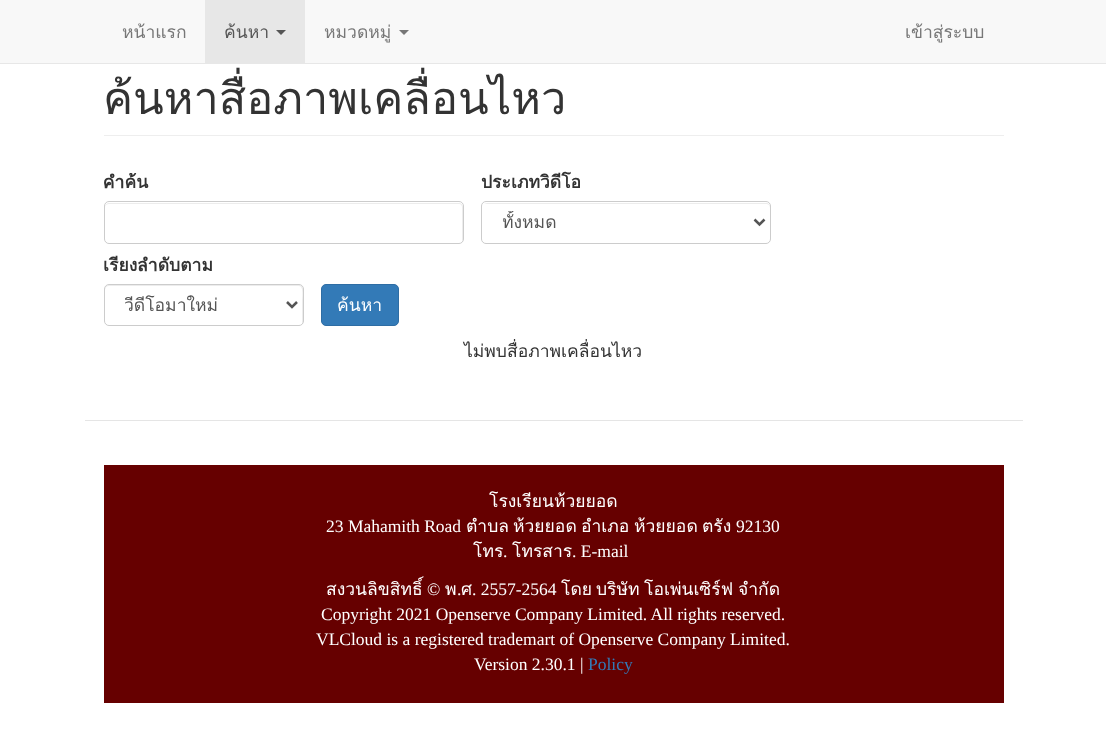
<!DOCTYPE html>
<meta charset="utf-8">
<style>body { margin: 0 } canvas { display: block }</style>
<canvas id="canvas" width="1106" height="747"></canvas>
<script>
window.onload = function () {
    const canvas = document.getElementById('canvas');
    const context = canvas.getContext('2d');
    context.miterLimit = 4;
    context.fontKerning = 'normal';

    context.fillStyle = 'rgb(255, 255, 255)';
    context.fillRect(0, 0, 1106, 747);
    context.fillStyle = 'rgb(248, 248, 248)';
    context.fillRect(0, 0, 1106, 63);
    context.fillStyle = 'rgb(231, 231, 231)';
    context.fillRect(0, 63, 1106, 1);
    context.fillRect(205, 0, 100, 63);
    context.fillStyle = 'rgb(85, 85, 85)';
    context.beginPath();
    context.moveTo(276, 30);
    context.lineTo(286, 30);
    context.lineTo(281, 35);
    context.closePath();
    context.fill();
    context.fillStyle = 'rgb(119, 119, 119)';
    context.beginPath();
    context.moveTo(399, 30);
    context.lineTo(409, 30);
    context.lineTo(404, 35);
    context.closePath();
    context.fill();
    context.fillStyle = 'rgb(238, 238, 238)';
    context.fillRect(104, 135, 900, 1);
    context.fillStyle = 'rgb(236, 236, 236)';
    context.beginPath();
    context.moveTo(109, 204);
    context.lineTo(459, 204);
    context.bezierCurveTo(461, 204, 462, 205, 462, 208);
    context.lineTo(462, 242);
    context.bezierCurveTo(462, 241, 463, 240, 463, 239);
    context.lineTo(463, 207);
    context.bezierCurveTo(463, 205, 461, 203, 459, 203);
    context.lineTo(109, 203);
    context.bezierCurveTo(107, 203, 105, 205, 105, 207);
    context.lineTo(105, 208);
    context.bezierCurveTo(105, 205, 107, 204, 109, 204);
    context.closePath();
    context.fill();
    context.beginPath();
    context.roundRect(104.5, 201.5, 359, 42, 4.5);
    context.strokeStyle = 'rgb(204, 204, 204)';
    context.stroke();
    context.beginPath();
    context.moveTo(486, 204);
    context.lineTo(767, 204);
    context.lineTo(769, 205);
    context.lineTo(770, 208);
    context.bezierCurveTo(770, 205, 769, 203, 766, 203);
    context.lineTo(487, 203);
    context.lineTo(484, 204);
    context.closePath();
    context.fill();
    context.beginPath();
    context.roundRect(481.5, 201.5, 289, 42, 4.5);
    context.stroke();
    context.beginPath();
    context.moveTo(754.5, 219.5);
    context.lineTo(759.5, 224.5);
    context.lineTo(764.5, 219.5);
    context.strokeStyle = 'rgb(85, 85, 85)';
    context.lineWidth = 2.5;
    context.stroke();
    context.beginPath();
    context.moveTo(109, 286);
    context.lineTo(299, 286);
    context.bezierCurveTo(304, 286, 302, 299, 302, 301);
    context.lineTo(302, 324);
    context.bezierCurveTo(303, 323, 303, 322, 303, 321);
    context.lineTo(303, 289);
    context.bezierCurveTo(303, 287, 301, 285, 299, 285);
    context.lineTo(109, 285);
    context.bezierCurveTo(107, 285, 105, 287, 105, 289);
    context.lineTo(105, 290);
    context.bezierCurveTo(105, 288, 107, 286, 109, 286);
    context.closePath();
    context.fill();
    context.beginPath();
    context.roundRect(104.5, 284.5, 199, 41, 4.5);
    context.strokeStyle = 'rgb(204, 204, 204)';
    context.lineWidth = 1;
    context.stroke();
    context.beginPath();
    context.moveTo(287, 302);
    context.lineTo(292, 307);
    context.lineTo(297, 302);
    context.strokeStyle = 'rgb(85, 85, 85)';
    context.lineWidth = 2.5;
    context.stroke();
    context.fillStyle = 'rgb(51, 122, 183)';
    context.beginPath();
    context.roundRect(321.5, 284.5, 77, 41, 4.5);
    context.fill();
    context.strokeStyle = 'rgb(46, 109, 164)';
    context.lineWidth = 1;
    context.stroke();
    context.fillStyle = 'rgb(229, 229, 229)';
    context.fillRect(85, 420, 938, 1);
    context.fillStyle = 'rgb(102, 0, 0)';
    context.fillRect(104, 465, 900, 238);
    context.font = '17.5px Loma';
    context.fillStyle = 'rgb(119, 119, 119)';
    context.fillText('หน้าแรก', 122, 38);
    context.fillStyle = 'rgb(85, 85, 85)';
    context.fillText('ค้นหา', 224, 38);
    context.fillStyle = 'rgb(119, 119, 119)';
    context.fillText('หมวดหมู่', 324, 38);
    context.fillText('เข้าสู่ระบบ', 905, 38);
    context.font = '45px Loma';
    context.fillStyle = 'rgb(51, 51, 51)';
    context.fillText('ค้นหาสื่อภาพเคลื่อนไหว', 103, 114);
    context.font = 'bold 17.5px Loma';
    context.fillText('คำค้น', 103, 188);
    context.fillText('ประเภทวิดีโอ', 481, 188);
    context.save();
    context.beginPath();
    context.rect(503, 211, 232, 23);
    context.clip();
    context.font = '17.5px Loma';
    context.fillStyle = 'rgb(85, 85, 85)';
    context.fillText('ทั้งหมด', 502, 228);
    context.restore();
    context.fillText('เรียงลำดับตาม', 103, 271);
    context.save();
    context.beginPath();
    context.rect(125, 294, 143, 22);
    context.clip();
    context.font = '17.5px Loma';
    context.fillStyle = 'rgb(85, 85, 85)';
    context.fillText('วีดีโอมาใหม่', 124, 311);
    context.restore();
    context.font = '17.5px Loma';
    context.fillStyle = 'rgb(255, 255, 255)';
    context.fillText('ค้นหา', 337, 311);
    context.fillStyle = 'rgb(51, 51, 51)';
    context.fillText('ไม่พบสื่อภาพเคลื่อนไหว', 464, 357);
    context.fillStyle = 'rgb(255, 255, 255)';
    context.fillText('โรงเรียนห้วยยอด', 489, 507);
    context.font = '17.5px Liberation Serif';
    context.fillText('23 Mahamith Road', 326, 532);
    context.font = '17.5px Loma';
    context.fillText('ตำบล', 466, 532);
    context.fillText('ห้วยยอด', 513, 532);
    context.fillText('อำเภอ', 581, 532);
    context.fillText('ห้วยยอด', 634, 532);
    context.fillText('ตรัง', 702, 532);
    context.font = '17.5px Liberation Serif';
    context.fillText('92130', 736, 532);
    context.font = '17.5px Loma';
    context.fillText('โทร', 473, 557);
    context.font = '17.5px Liberation Serif';
    context.fillText('.', 503, 557);
    context.font = '17.5px Loma';
    context.fillText('โทรสาร', 512, 557);
    context.font = '17.5px Liberation Serif';
    context.fillText('. E-mail', 572, 557);
    context.font = '17.5px Loma';
    context.fillText('สงวนลิขสิทธิ์', 326, 595);
    context.font = '17.5px Liberation Serif';
    context.fillText('©', 427, 595);
    context.font = '17.5px Loma';
    context.fillText('พ', 445, 595);
    context.font = '17.5px Liberation Serif';
    context.fillText('.', 457, 595);
    context.font = '17.5px Loma';
    context.fillText('ศ', 461, 595);
    context.font = '17.5px Liberation Serif';
    context.fillText('. 2557-2564', 472, 595);
    context.font = '17.5px Loma';
    context.fillText('โดย', 561, 595);
    context.fillText('บริษัท', 596, 595);
    context.fillText('โอเพ่นเซิร์ฟ', 644, 595);
    context.fillText('จำกัด', 738, 595);
    context.font = '17.5px Liberation Serif';
    context.fillText('Copyright 2021 Openserve Company Limited. All rights reserved.', 321, 620);
    context.fillText('VLCloud is a registered trademart of Openserve Company Limited.', 316, 645);
    context.fillText('Version 2.30.1 |', 474, 670);
    context.fillStyle = 'rgb(51, 122, 183)';
    context.fillText('Policy', 588, 670);
};
</script>
